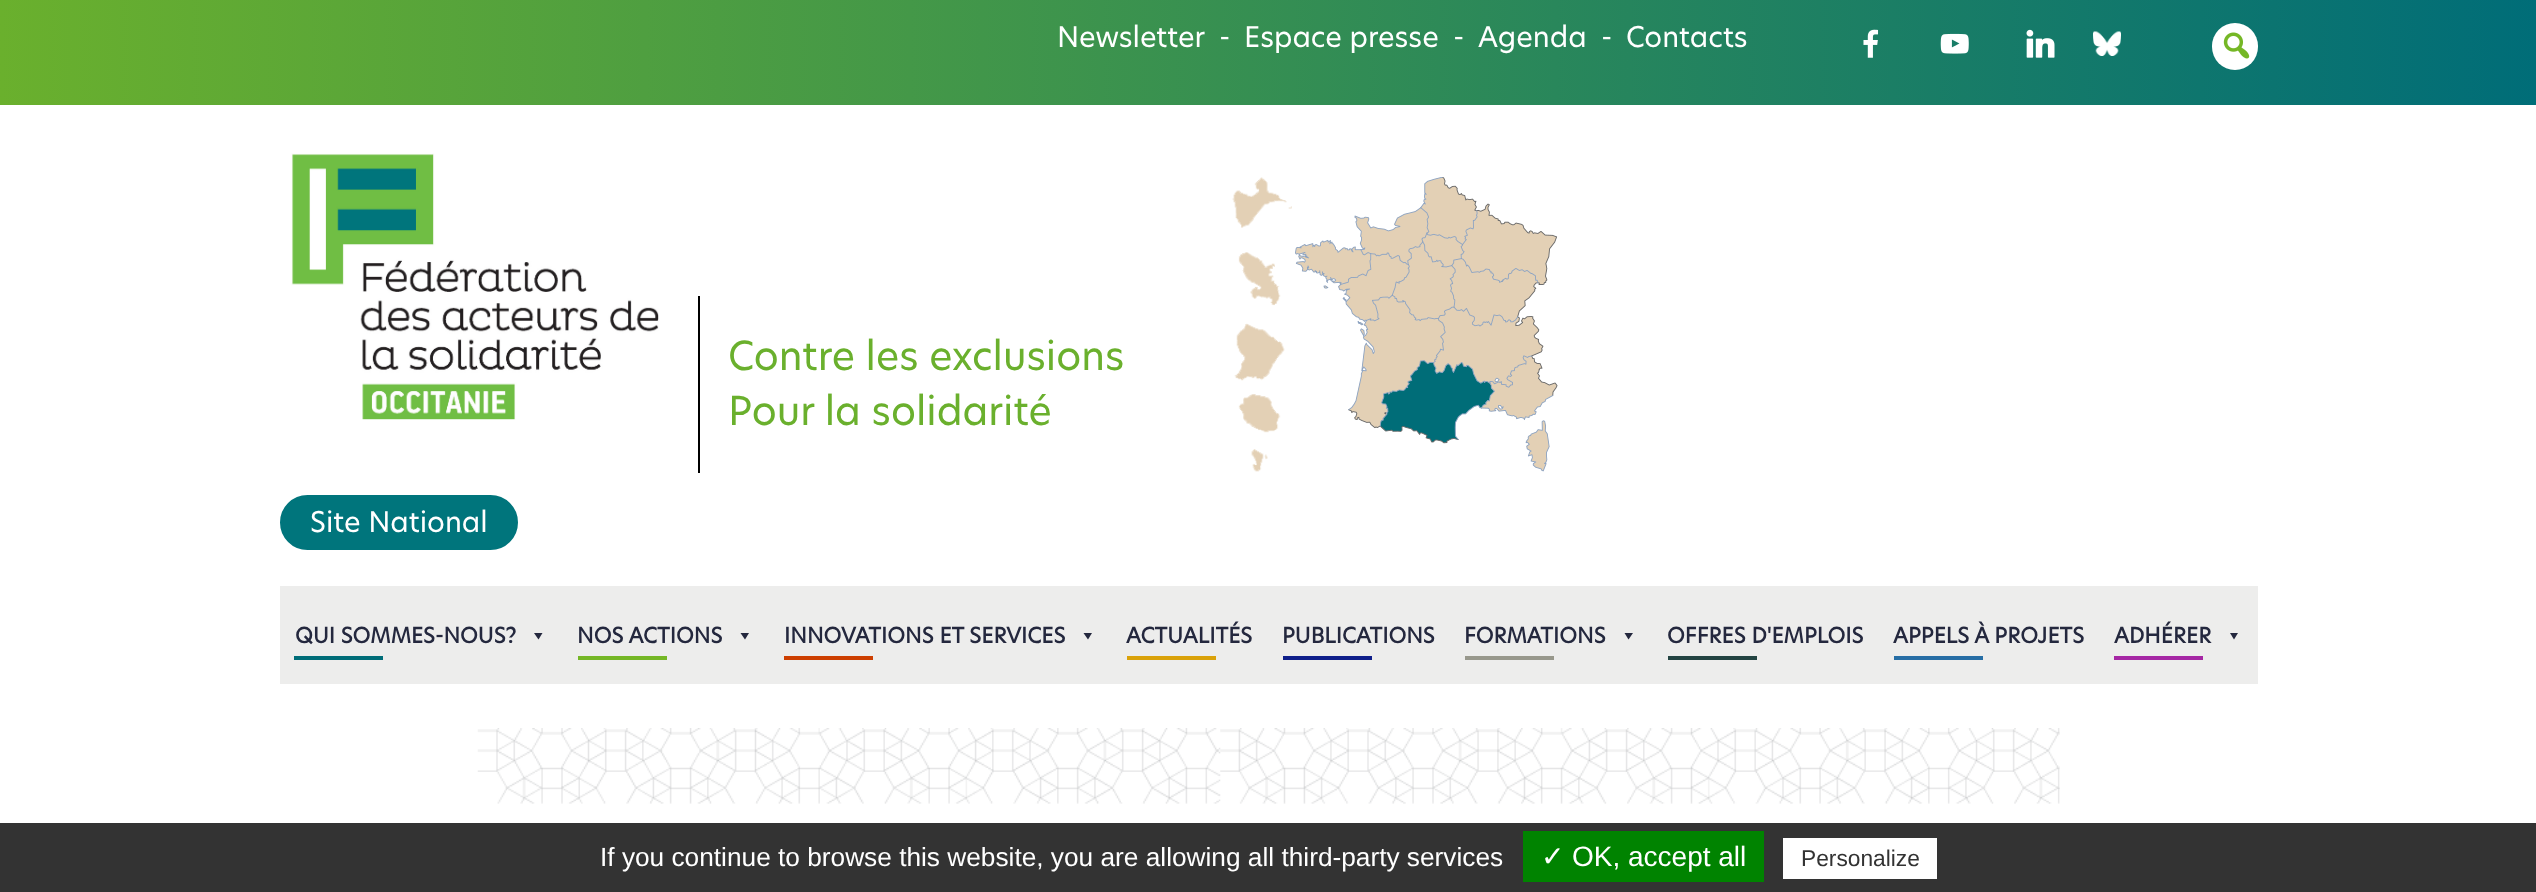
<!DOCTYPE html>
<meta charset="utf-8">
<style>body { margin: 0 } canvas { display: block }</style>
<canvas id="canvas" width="2536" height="892"></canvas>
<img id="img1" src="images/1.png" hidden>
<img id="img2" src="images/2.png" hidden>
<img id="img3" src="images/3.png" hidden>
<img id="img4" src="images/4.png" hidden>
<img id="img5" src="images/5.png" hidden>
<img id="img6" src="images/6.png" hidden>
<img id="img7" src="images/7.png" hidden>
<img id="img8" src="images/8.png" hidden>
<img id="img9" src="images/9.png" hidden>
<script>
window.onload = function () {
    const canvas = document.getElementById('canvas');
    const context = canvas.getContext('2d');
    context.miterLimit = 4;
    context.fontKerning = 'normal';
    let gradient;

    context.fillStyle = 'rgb(255, 255, 255)';
    context.fillRect(0, 0, 2536, 892);
    gradient = context.createLinearGradient(0, 53, 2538, 52);
    gradient.addColorStop(0, 'rgb(106, 176, 45)');
    gradient.addColorStop(1, 'rgb(0, 109, 120)');
    context.fillStyle = gradient;
    context.fillRect(0, 0, 2536, 105);
    context.drawImage(document.getElementById('img1'), 1863, 29, 16, 29);
    context.drawImage(document.getElementById('img2'), 1940, 33, 29, 21);
    context.drawImage(document.getElementById('img3'), 2026, 29, 29, 29);
    context.drawImage(document.getElementById('img4'), 2093, 31, 28, 25);
    context.fillStyle = 'rgb(255, 255, 255)';
    context.beginPath();
    context.roundRect(2212, 23, 46, 47, 23);
    context.fill();
    context.drawImage(document.getElementById('img5'), 2223, 32, 27, 27);
    context.drawImage(document.getElementById('img6'), 291, 153, 368, 267);
    context.fillStyle = 'rgb(0, 0, 0)';
    context.fillRect(698, 296, 2, 177);
    context.drawImage(document.getElementById('img7'), 1232, 177, 60, 295);
    context.drawImage(document.getElementById('img8'), 1295, 177, 263, 295);
    context.fillStyle = 'rgb(0, 117, 124)';
    context.beginPath();
    context.roundRect(281, 496, 236, 53, 26.5);
    context.fill();
    context.strokeStyle = 'rgb(0, 117, 124)';
    context.lineWidth = 2;
    context.stroke();
    context.fillStyle = 'rgb(237, 237, 236)';
    context.fillRect(280, 586, 1978, 98);
    context.fillStyle = 'rgb(36, 40, 62)';
    context.beginPath();
    context.moveTo(542.5, 633);
    context.lineTo(538.5, 639.5);
    context.lineTo(534, 633);
    context.closePath();
    context.fill();
    context.fillStyle = 'rgb(0, 109, 120)';
    context.fillRect(294, 656, 89, 4);
    context.fillStyle = 'rgb(36, 40, 62)';
    context.beginPath();
    context.moveTo(749, 633);
    context.lineTo(745, 639.5);
    context.lineTo(740.5, 633);
    context.closePath();
    context.fill();
    context.fillStyle = 'rgb(117, 183, 38)';
    context.fillRect(578, 656, 89, 4);
    context.fillStyle = 'rgb(36, 40, 62)';
    context.beginPath();
    context.moveTo(1092, 633);
    context.lineTo(1088, 639.5);
    context.lineTo(1083.5, 633);
    context.closePath();
    context.fill();
    context.fillStyle = 'rgb(205, 63, 1)';
    context.fillRect(784, 656, 89, 4);
    context.fillStyle = 'rgb(218, 162, 10)';
    context.fillRect(1127, 656, 89, 4);
    context.fillStyle = 'rgb(15, 31, 138)';
    context.fillRect(1283, 656, 89, 4);
    context.fillStyle = 'rgb(36, 40, 62)';
    context.beginPath();
    context.moveTo(1633, 633);
    context.lineTo(1628.5, 639.5);
    context.lineTo(1624.5, 633);
    context.closePath();
    context.fill();
    context.fillStyle = 'rgb(152, 152, 140)';
    context.fillRect(1465, 656, 89, 4);
    context.fillStyle = 'rgb(35, 68, 66)';
    context.fillRect(1668, 656, 89, 4);
    context.fillStyle = 'rgb(39, 110, 165)';
    context.fillRect(1894, 656, 89, 4);
    context.fillStyle = 'rgb(36, 40, 62)';
    context.beginPath();
    context.moveTo(2238, 633);
    context.lineTo(2234, 639.5);
    context.lineTo(2230, 633);
    context.closePath();
    context.fill();
    context.fillStyle = 'rgb(165, 39, 164)';
    context.fillRect(2114, 656, 89, 4);
    context.drawImage(document.getElementById('img9'), 477, 728, 1583, 76);
    context.fillStyle = 'rgb(51, 51, 51)';
    context.fillRect(0, 823, 2536, 69);
    context.fillStyle = 'rgb(0, 131, 0)';
    context.fillRect(1523, 831, 241, 51);
    context.fillStyle = 'rgb(255, 255, 255)';
    context.fillRect(1783, 838, 154, 41);
    context.font = '28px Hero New';
    context.fillText('Newsletter', 1057, 47);
    context.fillText('-', 1219, 47);
    context.fillText('Espace presse', 1244, 47);
    context.fillText('-', 1453, 47);
    context.fillText('Agenda', 1478, 47);
    context.fillText('-', 1601, 47);
    context.fillText('Contacts', 1626, 47);
    context.font = '39.25px Hero New';
    context.fillStyle = 'rgb(106, 176, 45)';
    context.fillText('Contre les exclusions', 728, 370);
    context.fillText('Pour la solidarité', 728, 425);
    context.font = '28px Hero New';
    context.fillStyle = 'rgb(255, 255, 255)';
    context.fillText('Site National', 310, 532);
    context.font = 'bold 21px Hero New';
    context.fillStyle = 'rgb(36, 40, 62)';
    context.fillText('QUI SOMMES-NOUS?', 295, 643);
    context.fillText('NOS ACTIONS', 577, 643);
    context.fillText('INNOVATIONS ET SERVICES', 784, 643);
    context.fillText('ACTUALITÉS', 1126, 643);
    context.fillText('PUBLICATIONS', 1282, 643);
    context.fillText('FORMATIONS', 1464, 643);
    context.fillText('OFFRES D\'EMPLOIS', 1667, 643);
    context.fillText('APPELS À PROJETS', 1893, 643);
    context.fillText('ADHÉRER', 2114, 643);
    context.font = '26.25px Liberation Sans';
    context.fillStyle = 'rgb(255, 255, 255)';
    context.fillText('If you continue to browse this website, you are allowing all third-party services', 600, 866);
    context.font = '28px DejaVu Sans';
    context.fillText('✓', 1541, 866);
    context.font = '28px Liberation Sans';
    context.fillText('OK, accept all', 1572, 866);
    context.font = '22.75px Liberation Sans';
    context.fillStyle = 'rgb(51, 51, 51)';
    context.fillText('Personalize', 1801, 866);
};
</script>
